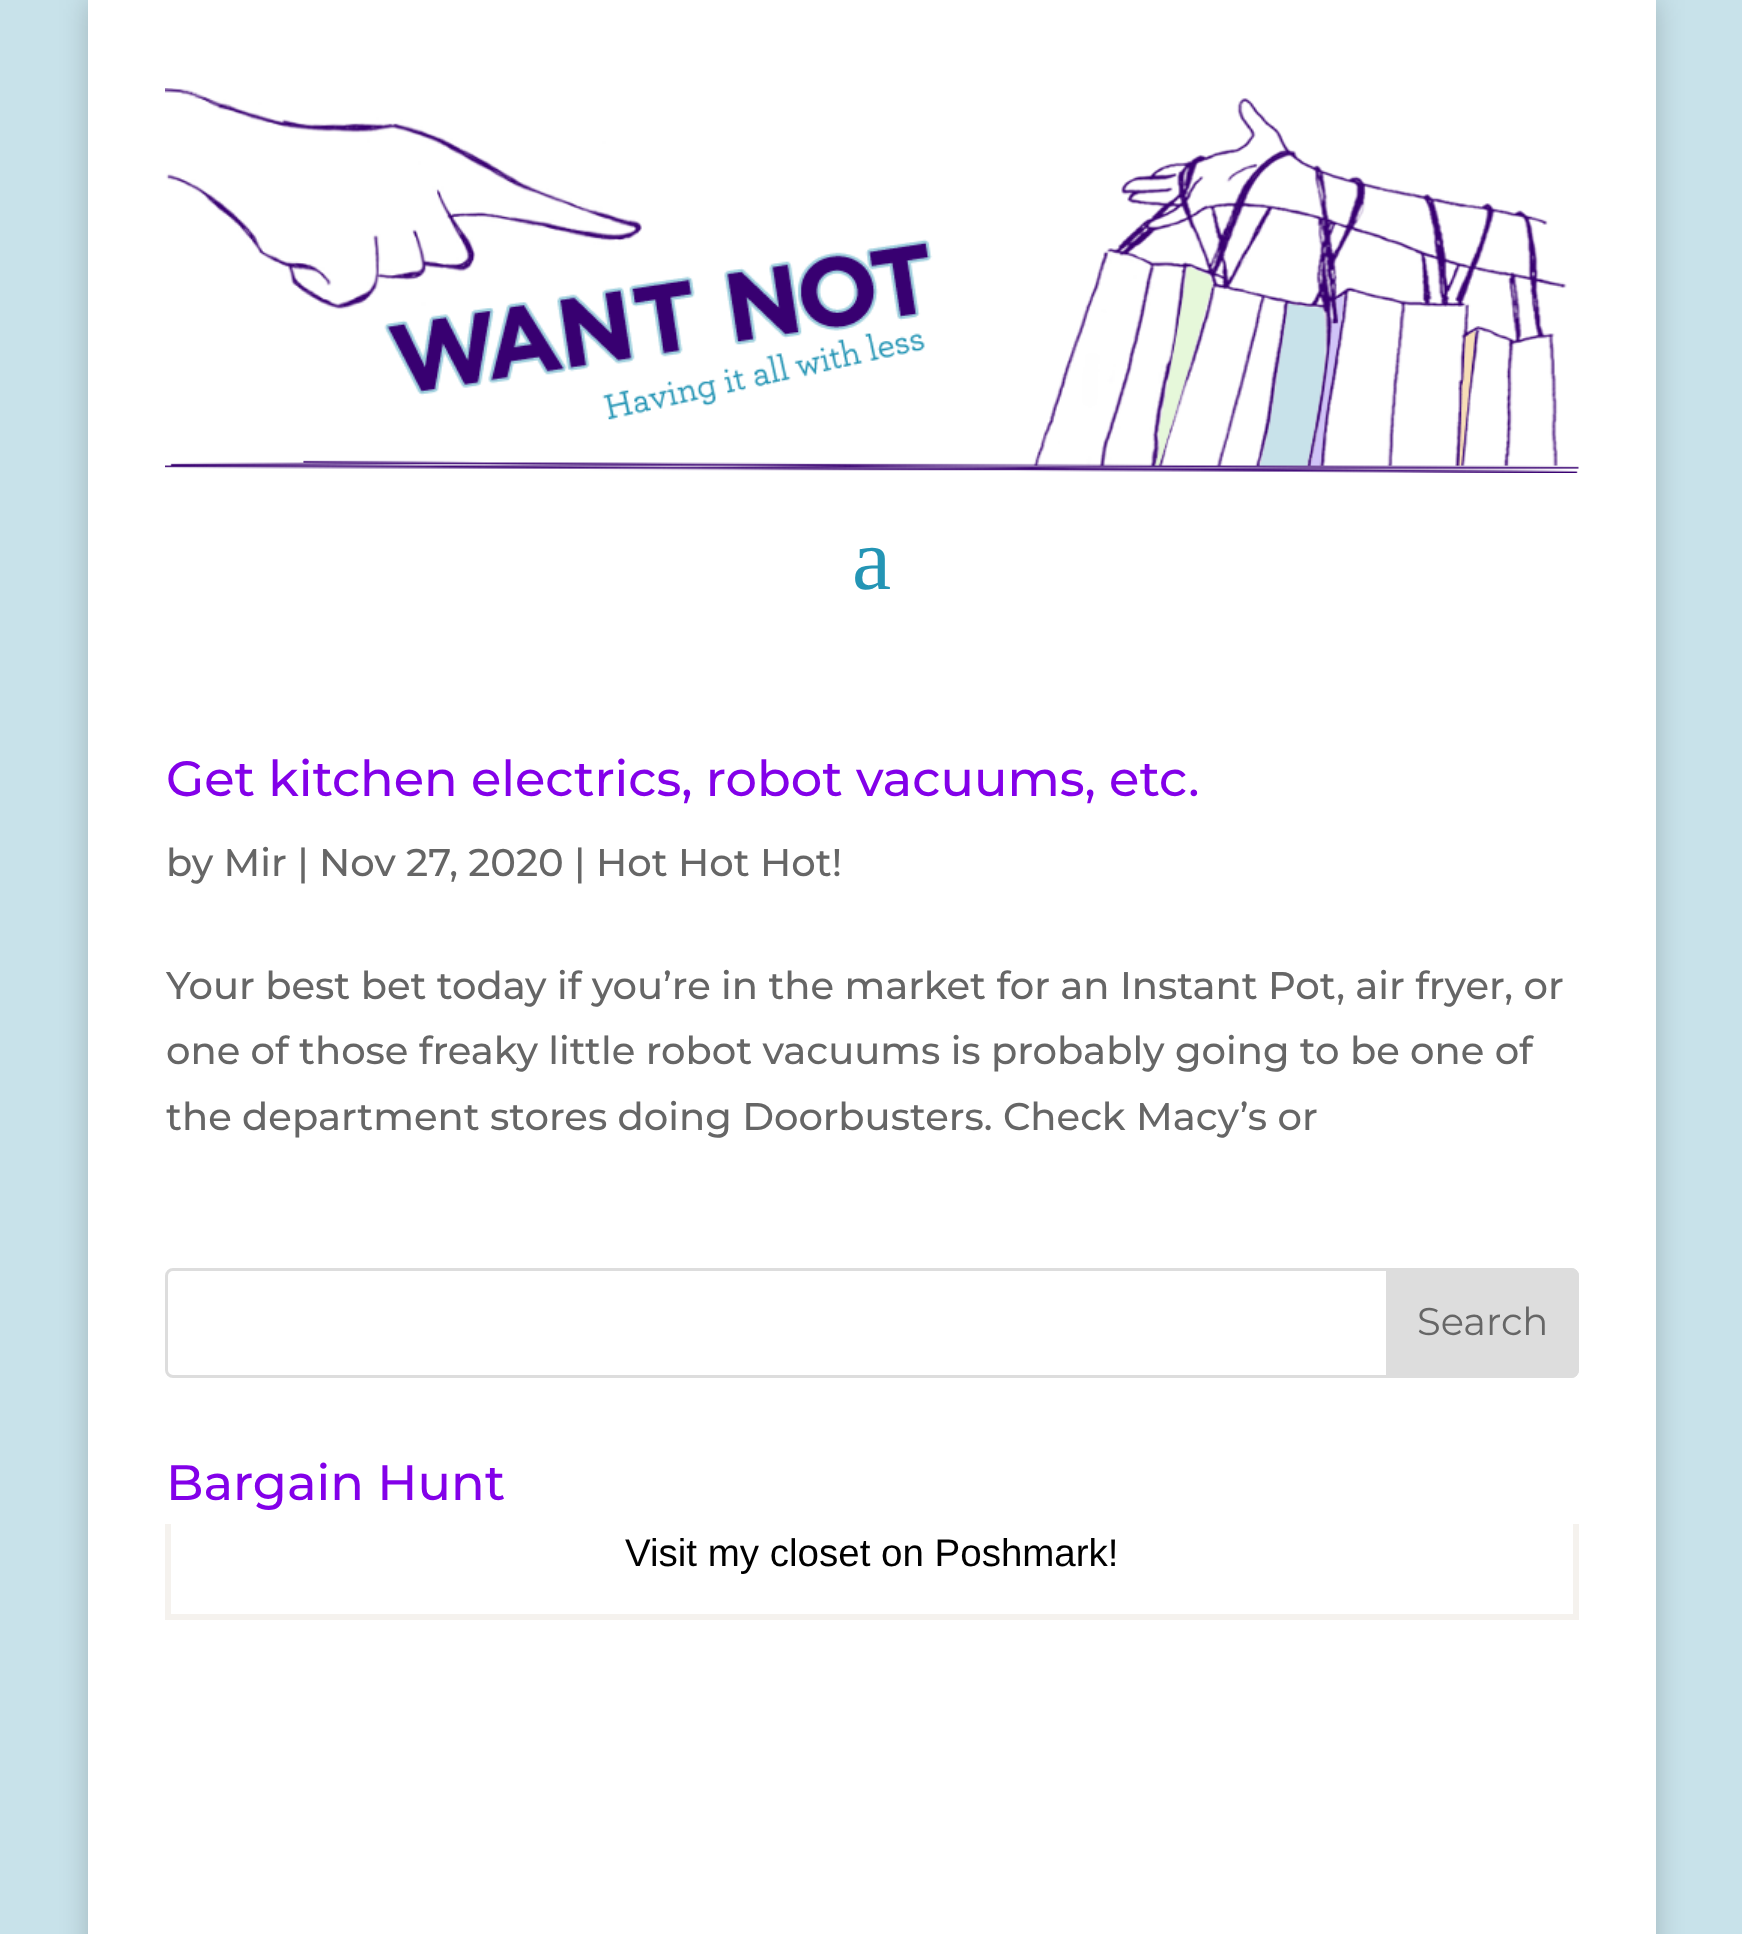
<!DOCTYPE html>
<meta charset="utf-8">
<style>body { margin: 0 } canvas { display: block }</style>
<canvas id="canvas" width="1742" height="1934"></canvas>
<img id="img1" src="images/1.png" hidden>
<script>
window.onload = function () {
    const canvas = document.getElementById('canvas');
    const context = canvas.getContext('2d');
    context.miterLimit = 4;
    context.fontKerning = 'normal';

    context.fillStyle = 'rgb(200, 226, 234)';
    context.fillRect(0, 0, 1742, 1934);
    context.fillStyle = 'rgba(0, 0, 0, 0.2)';
    context.filter = 'blur(14px)';
    context.beginPath();
    context.rect(88, 0, 1568, 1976);
    context.fill();
    context.filter = 'none';
    context.fillStyle = 'rgb(255, 255, 255)';
    context.fillRect(88, 0, 1568, 627);
    context.drawImage(document.getElementById('img1'), 165, 88, 1414, 385);
    context.fillRect(88, 627, 1568, 1307);
    context.beginPath();
    context.roundRect(166.5, 1269.5, 1411, 107, 6.5);
    context.strokeStyle = 'rgb(221, 221, 221)';
    context.lineWidth = 3;
    context.stroke();
    context.fillStyle = 'rgb(221, 221, 221)';
    context.beginPath();
    context.roundRect(1387.5, 1269.5, 190, 107, [0, 6.5, 6.5, 0]);
    context.fill();
    context.stroke();
    context.fillStyle = 'rgb(245, 242, 238)';
    context.fillRect(1573, 1524, 6, 96);
    context.fillRect(165, 1614, 1414, 6);
    context.fillRect(165, 1524, 6, 96);
    context.font = '88px Liberation Serif';
    context.fillStyle = 'rgb(36, 149, 181)';
    context.fillText('a', 852, 589);
    context.font = '100 49.5px Montserrat';
    context.fillStyle = 'rgb(131, 0, 233)';
    context.fillText('Get kitchen electrics, robot vacuums, etc.', 166, 796);
    context.font = '100 38.5px Montserrat';
    context.fillStyle = 'rgb(102, 102, 102)';
    context.fillText('by Mir | Nov 27, 2020 | Hot Hot Hot!', 166, 876);
    context.fillText('Your best bet today if you’re in the market for an Instant Pot, air fryer, or', 166, 999);
    context.fillText('one of those freaky little robot vacuums is probably going to be one of', 166, 1064);
    context.fillText('the department stores doing Doorbusters. Check Macy’s or', 166, 1130);
    context.font = '100 38.5px "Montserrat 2"';
    context.fillText('Search', 1417, 1335);
    context.font = '100 49.5px Montserrat';
    context.fillStyle = 'rgb(131, 0, 233)';
    context.fillText('Bargain Hunt', 166, 1500);
    context.font = '38.5px Liberation Sans';
    context.fillStyle = 'rgb(0, 0, 0)';
    context.fillText('Visit my closet on Poshmark!', 625, 1566);
};
</script>
